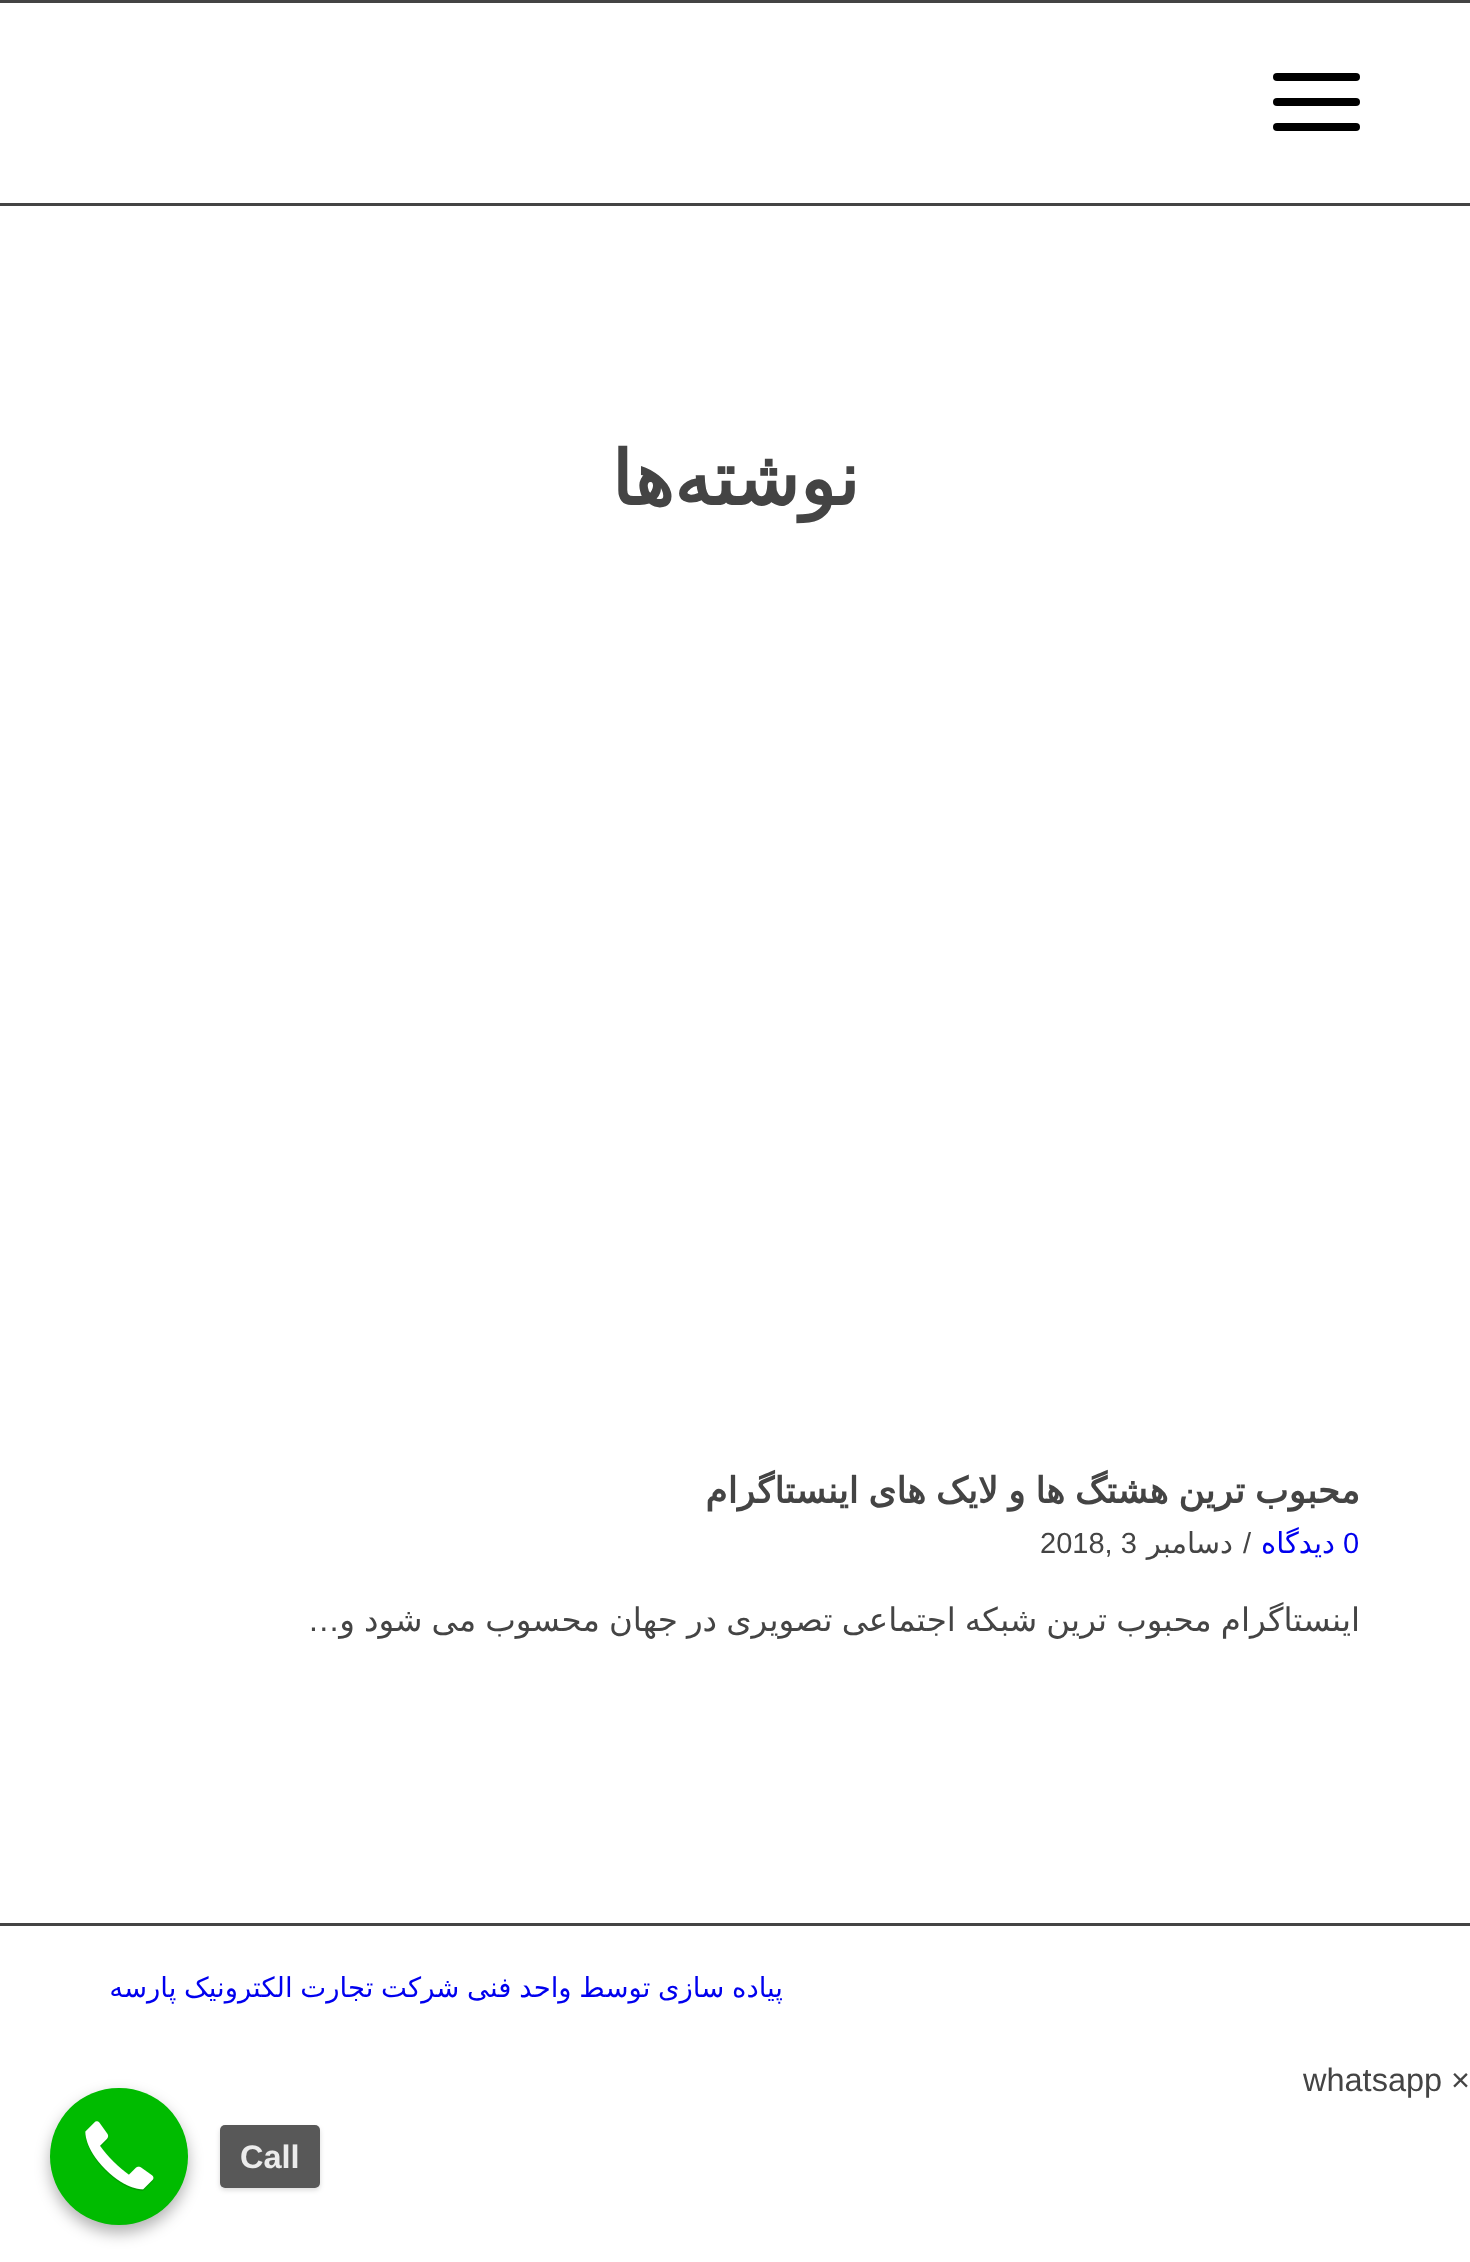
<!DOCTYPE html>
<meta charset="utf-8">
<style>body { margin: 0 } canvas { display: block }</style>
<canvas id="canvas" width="1470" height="2262"></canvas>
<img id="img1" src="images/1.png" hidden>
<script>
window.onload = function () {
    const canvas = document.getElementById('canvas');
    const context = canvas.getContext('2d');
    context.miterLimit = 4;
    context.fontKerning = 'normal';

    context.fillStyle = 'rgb(255, 255, 255)';
    context.fillRect(0, 0, 1470, 2262);
    context.fillStyle = 'rgb(68, 68, 68)';
    context.fillRect(0, 0, 1470, 3);
    context.fillRect(0, 203, 1470, 3);
    context.fillStyle = 'rgb(0, 0, 0)';
    context.beginPath();
    context.roundRect(1273, 98, 87, 8, 4);
    context.fill();
    context.beginPath();
    context.roundRect(1273, 73, 87, 8, 4);
    context.fill();
    context.beginPath();
    context.roundRect(1273, 123, 87, 8, 4);
    context.fill();
    context.fillStyle = 'rgb(68, 68, 68)';
    context.fillRect(0, 1923, 1470, 3);
    context.fillStyle = 'rgba(0, 0, 0, 0.3)';
    context.filter = 'blur(7.5px)';
    context.beginPath();
    context.roundRect(50, 2095, 138, 138, 69);
    context.fill();
    context.filter = 'none';
    context.fillStyle = 'rgb(0, 187, 0)';
    context.beginPath();
    context.roundRect(50, 2088, 138, 137, 68.5);
    context.fill();
    context.drawImage(document.getElementById('img1'), 85, 2121, 69, 70);
    context.save();
    context.beginPath();
    context.moveTo(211, 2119);
    context.lineTo(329, 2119);
    context.lineTo(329, 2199);
    context.lineTo(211, 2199);
    context.closePath();
    context.moveTo(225, 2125);
    context.lineTo(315, 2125);
    context.bezierCurveTo(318, 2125, 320, 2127, 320, 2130);
    context.lineTo(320, 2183);
    context.bezierCurveTo(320, 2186, 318, 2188, 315, 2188);
    context.lineTo(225, 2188);
    context.bezierCurveTo(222, 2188, 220, 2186, 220, 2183);
    context.lineTo(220, 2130);
    context.bezierCurveTo(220, 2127, 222, 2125, 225, 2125);
    context.closePath();
    context.clip('evenodd');
    context.fillStyle = 'rgba(0, 0, 0, 0.15)';
    context.filter = 'blur(2.5px)';
    context.beginPath();
    context.roundRect(220, 2128, 100, 62, 5);
    context.fill();
    context.filter = 'none';
    context.restore();
    context.fillStyle = 'rgba(70, 70, 70, 0.9)';
    context.beginPath();
    context.roundRect(220, 2125, 100, 63, 5);
    context.fill();
    context.direction = 'rtl';
    context.font = 'bold 75px DejaVu Sans';
    context.fillStyle = 'rgb(68, 68, 68)';
    context.fillText('نوشته‌ها', 859, 505);
    context.wordSpacing = '-1.5px';
    context.font = 'bold 35.75px DejaVu Sans';
    context.fillText('محبوب ترین هشتگ ها و لایک های اینستاگرام', 1360, 1503);
    context.wordSpacing = '0px';
    context.direction = 'ltr';
    context.font = '29px Liberation Sans';
    context.fillStyle = 'rgb(0, 0, 238)';
    context.fillText('0', 1343, 1553);
    context.direction = 'rtl';
    context.font = '29px DejaVu Sans';
    context.fillText('دیدگاه', 1335, 1553);
    context.direction = 'ltr';
    context.font = '29px Liberation Sans';
    context.fillStyle = 'rgb(68, 68, 68)';
    context.fillText('/', 1243, 1553);
    context.direction = 'rtl';
    context.font = '29px DejaVu Sans';
    context.fillText('دسامبر', 1233, 1553);
    context.direction = 'ltr';
    context.font = '29px Liberation Sans';
    context.fillText('2018, 3', 1040, 1553);
    context.wordSpacing = '-1.25px';
    context.direction = 'rtl';
    context.font = '32.5px DejaVu Sans';
    context.fillText('اینستاگرام محبوب ترین شبکه اجتماعی تصویری در جهان محسوب می شود و', 1360, 1631);
    context.wordSpacing = '0px';
    context.font = '32.5px Liberation Sans';
    context.fillText('…', 340, 1631);
    context.wordSpacing = '-1px';
    context.font = '27.5px DejaVu Sans';
    context.fillStyle = 'rgb(0, 0, 238)';
    context.fillText('پیاده سازی توسط واحد فنی شرکت تجارت الکترونیک پارسه', 783, 1997);
    context.wordSpacing = '0px';
    context.direction = 'ltr';
    context.font = '32.5px Liberation Sans';
    context.fillStyle = 'rgb(68, 68, 68)';
    context.fillText('×', 1451, 2091);
    context.fillText('whatsapp', 1303, 2091);
    context.font = 'bold 32.5px Liberation Sans';
    context.fillStyle = 'rgb(236, 236, 236)';
    context.fillText('Call', 240, 2168);
};
</script>
